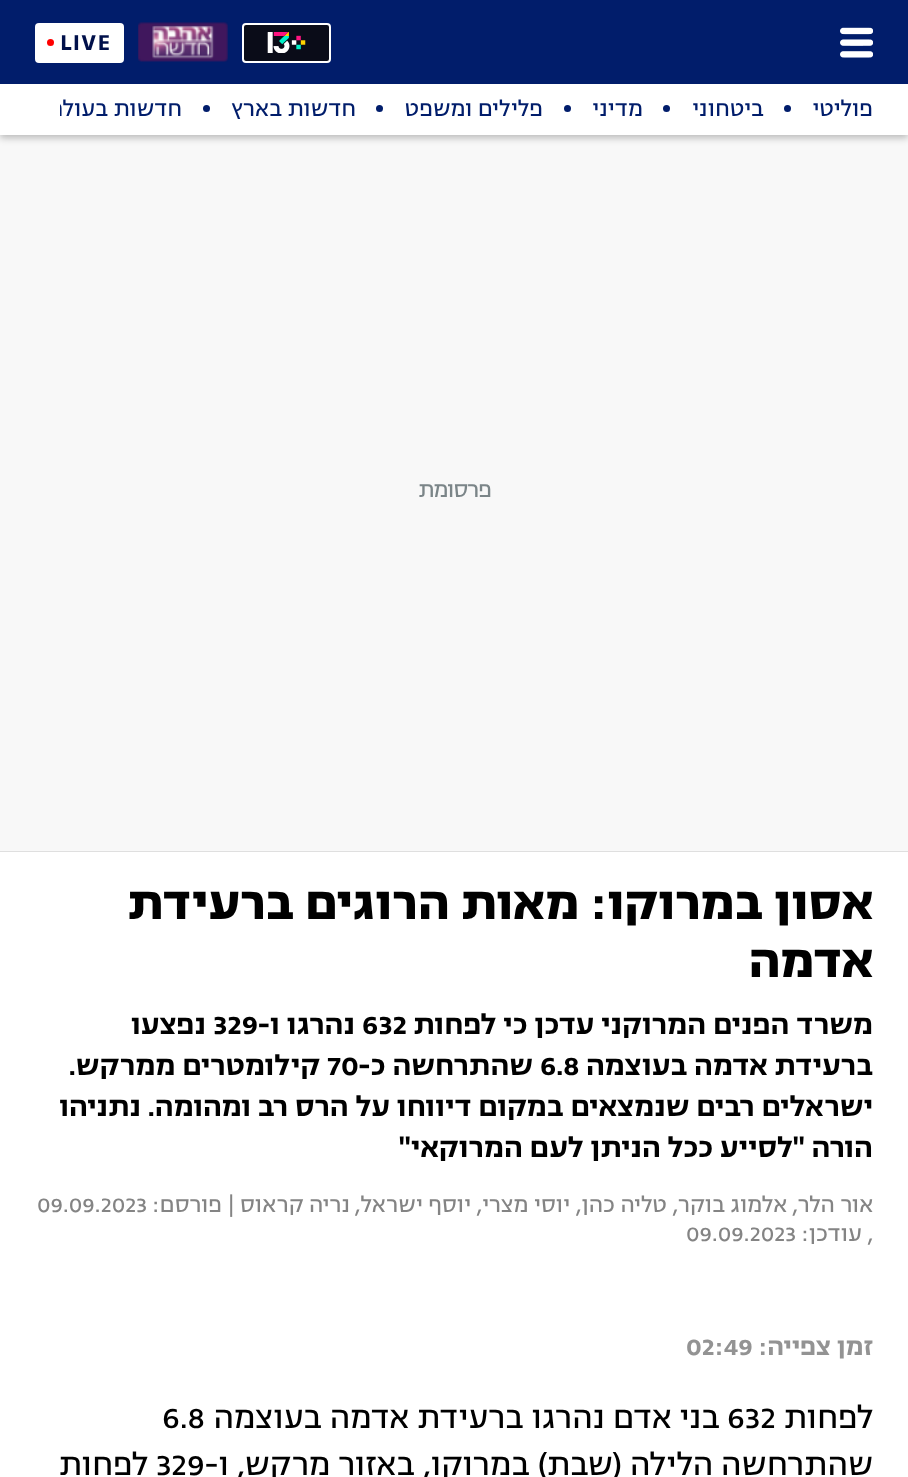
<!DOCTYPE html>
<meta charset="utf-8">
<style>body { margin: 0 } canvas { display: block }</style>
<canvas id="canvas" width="908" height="1477"></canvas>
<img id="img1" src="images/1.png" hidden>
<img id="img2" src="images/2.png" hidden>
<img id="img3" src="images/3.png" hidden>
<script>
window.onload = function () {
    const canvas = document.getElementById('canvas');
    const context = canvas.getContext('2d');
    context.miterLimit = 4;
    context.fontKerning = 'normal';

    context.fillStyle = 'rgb(255, 255, 255)';
    context.fillRect(0, 0, 908, 1477);
    context.fillStyle = 'rgb(248, 248, 248)';
    context.fillRect(0, 135, 908, 716);
    context.fillStyle = 'rgba(0, 0, 0, 0.25)';
    context.filter = 'blur(3.5px)';
    context.beginPath();
    context.rect(0, 4, 908, 134);
    context.fill();
    context.filter = 'none';
    context.fillStyle = 'rgb(1, 29, 107)';
    context.fillRect(0, 0, 908, 84);
    context.drawImage(document.getElementById('img1'), 840, 27, 33, 31);
    context.fillStyle = 'rgb(10, 12, 24)';
    context.beginPath();
    context.roundRect(243, 24, 87, 38, 3);
    context.fill();
    context.strokeStyle = 'rgb(255, 255, 255)';
    context.lineWidth = 2;
    context.stroke();
    context.drawImage(document.getElementById('img2'), 267, 32, 39, 21);
    context.drawImage(document.getElementById('img3'), 138, 22, 90, 40);
    context.fillStyle = 'rgb(255, 255, 255)';
    context.beginPath();
    context.roundRect(35, 23, 89, 40, 4);
    context.fill();
    context.fillStyle = 'rgb(255, 0, 0)';
    context.beginPath();
    context.arc(50.5, 42.5, 3.5, 0, 2 * Math.PI);
    context.fill();
    context.fillStyle = 'rgb(255, 255, 255)';
    context.fillRect(0, 84, 908, 51);
    context.fillStyle = 'rgb(1, 29, 107)';
    context.beginPath();
    context.arc(787.5, 108.5, 3.5, 0, 2 * Math.PI);
    context.fill();
    context.beginPath();
    context.arc(666.5, 108.5, 3.5, 0, 2 * Math.PI);
    context.fill();
    context.beginPath();
    context.arc(567.5, 108.5, 3.5, 0, 2 * Math.PI);
    context.fill();
    context.beginPath();
    context.arc(379.5, 108.5, 3.5, 0, 2 * Math.PI);
    context.fill();
    context.beginPath();
    context.arc(206.5, 108.5, 3.5, 0, 2 * Math.PI);
    context.fill();
    context.fillStyle = 'rgb(223, 223, 223)';
    context.fillRect(0, 851, 908, 1);
    context.letterSpacing = '1px';
    context.font = '600 26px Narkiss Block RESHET';
    context.fillStyle = 'rgb(0, 16, 74)';
    context.fillText('LIVE', 60, 50);
    context.letterSpacing = '0px';
    context.direction = 'rtl';
    context.font = '24.5px Narkiss Block RESHET';
    context.fillStyle = 'rgb(1, 29, 107)';
    context.fillText('פוליטי', 873, 116);
    context.fillText('ביטחוני', 764, 116);
    context.fillText('מדיני', 643, 116);
    context.fillText('פלילים ומשפט', 543, 116);
    context.fillText('חדשות בארץ', 356, 116);
    context.save();
    context.beginPath();
    context.rect(60, 93, 813, 33);
    context.clip();
    context.fillText('חדשות בעולם', 182, 116);
    context.restore();
    context.letterSpacing = '-1px';
    context.fillStyle = 'rgb(123, 133, 136)';
    context.fillText('פרסומת', 491, 497);
    context.letterSpacing = '0px';
    context.font = 'bold 52.5px Narkiss Block RESHET';
    context.fillStyle = 'rgb(0, 0, 0)';
    context.fillText('אסון במרוקו: מאות הרוגים ברעידת', 873, 919);
    context.fillText('אדמה', 873, 977);
    context.font = '600 31.5px Narkiss Block RESHET';
    context.fillText('משרד הפנים המרוקני עדכן כי לפחות', 873, 1034);
    context.direction = 'ltr';
    context.fillText('632', 362, 1034);
    context.direction = 'rtl';
    context.fillText('נהרגו ו-', 355, 1034);
    context.direction = 'ltr';
    context.fillText('329', 213, 1034);
    context.direction = 'rtl';
    context.fillText('נפצעו', 206, 1034);
    context.fillText('ברעידת אדמה בעוצמה', 873, 1075);
    context.direction = 'ltr';
    context.fillText('6.8', 540, 1075);
    context.direction = 'rtl';
    context.fillText('שהתרחשה כ-', 533, 1075);
    context.direction = 'ltr';
    context.fillText('70', 327, 1075);
    context.direction = 'rtl';
    context.fillText('קילומטרים ממרקש.', 320, 1075);
    context.fillText('ישראלים רבים שנמצאים במקום דיווחו על הרס רב ומהומה. נתניהו', 873, 1116);
    context.fillText('הורה "לסייע ככל הניתן לעם המרוקאי"', 873, 1157);
    context.font = '24.5px Narkiss Block RESHET';
    context.fillStyle = 'rgb(132, 132, 132)';
    context.fillText('אור הלר,', 873, 1212);
    context.fillText('אלמוג בוקר,', 787, 1212);
    context.fillText('טליה כהן,', 667, 1212);
    context.fillText('יוסי מצרי,', 570, 1212);
    context.fillText('יוסף ישראל,', 471, 1212);
    context.fillText('נריה קראוס |', 350, 1212);
    context.fillText('פורסם:', 222, 1212);
    context.direction = 'ltr';
    context.fillText('09.09.2023', 37, 1212);
    context.direction = 'rtl';
    context.fillText(', עודכן:', 873, 1241);
    context.direction = 'ltr';
    context.fillText('09.09.2023', 686, 1241);
    context.direction = 'rtl';
    context.font = '600 28px Narkiss Block RESHET';
    context.fillStyle = 'rgb(147, 147, 147)';
    context.fillText('זמן צפייה:', 873, 1355);
    context.direction = 'ltr';
    context.fillText('02:49', 686, 1355);
    context.direction = 'rtl';
    context.font = '35px Narkiss Block RESHET';
    context.fillStyle = 'rgb(0, 0, 0)';
    context.fillText('לפחות', 873, 1428);
    context.direction = 'ltr';
    context.fillText('632', 727, 1428);
    context.direction = 'rtl';
    context.fillText('בני אדם נהרגו ברעידת אדמה בעוצמה', 720, 1428);
    context.direction = 'ltr';
    context.fillText('6.8', 162, 1428);
    context.direction = 'rtl';
    context.fillText('שהתרחשה הלילה (שבת) במרוקו, באזור מרקש, ו-', 873, 1475);
    context.direction = 'ltr';
    context.fillText('329', 156, 1475);
    context.direction = 'rtl';
    context.fillText('לפחות', 148, 1475);
};
</script>
